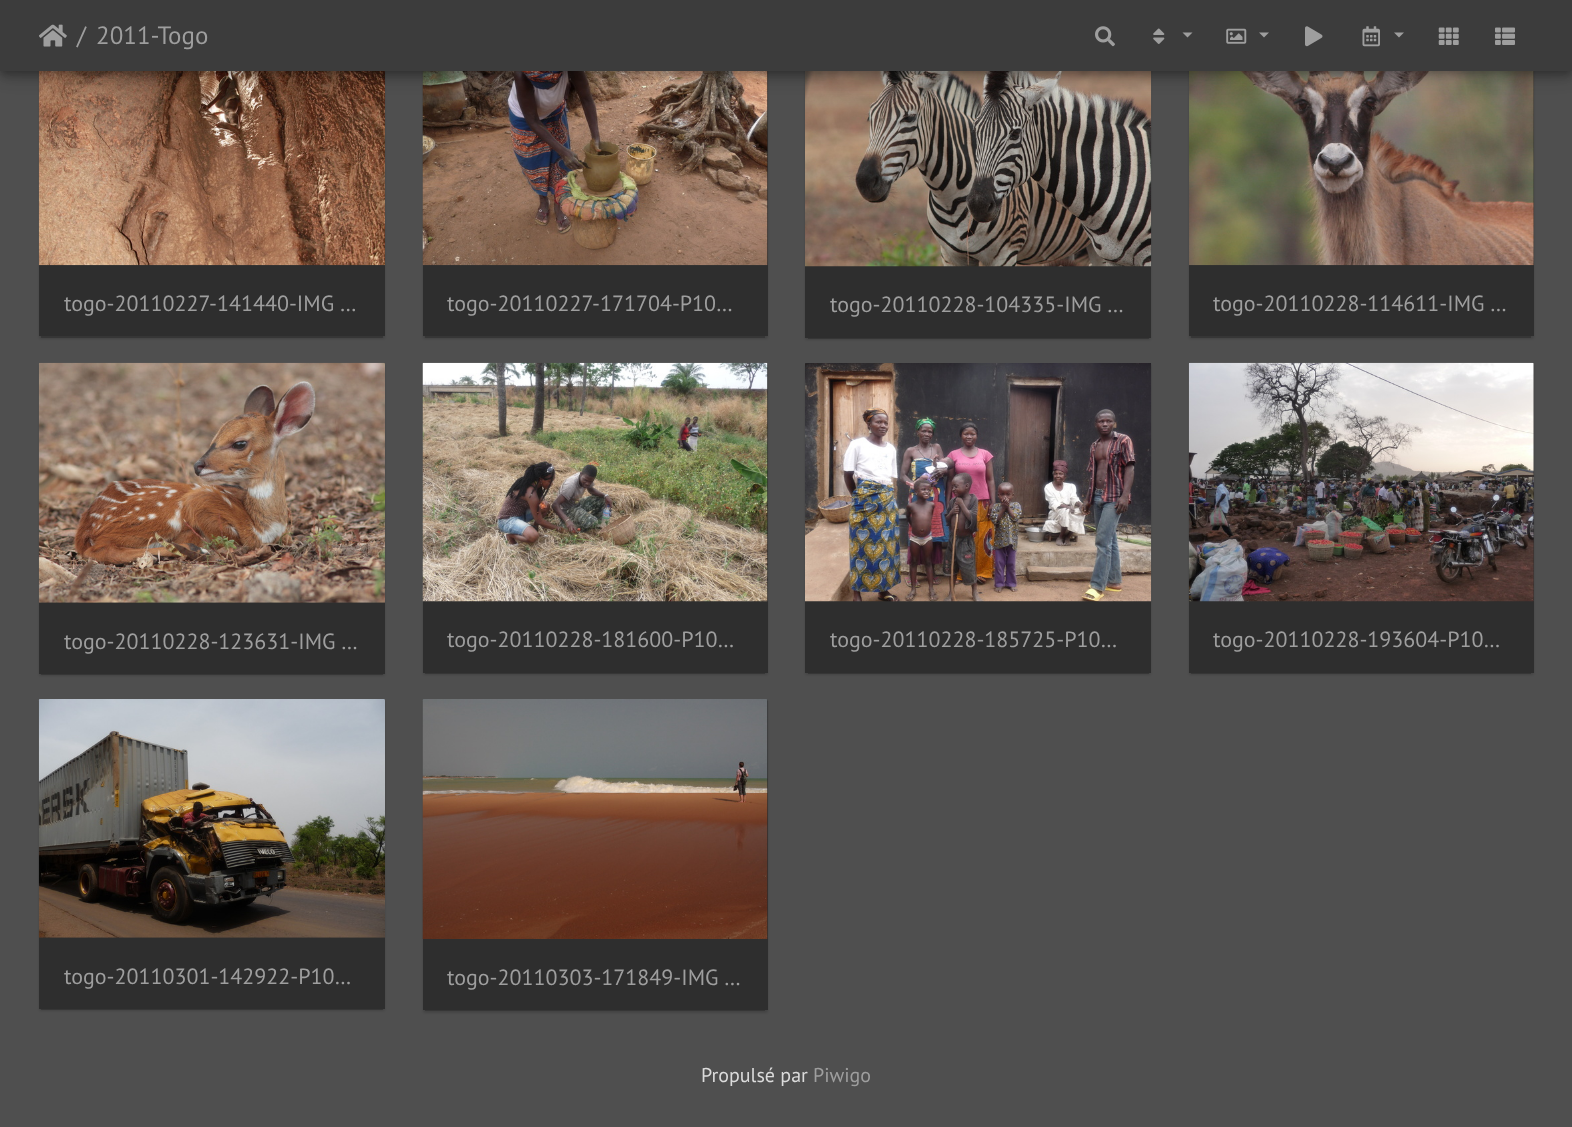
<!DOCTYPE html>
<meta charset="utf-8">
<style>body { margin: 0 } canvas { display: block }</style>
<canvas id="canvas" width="1572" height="1127"></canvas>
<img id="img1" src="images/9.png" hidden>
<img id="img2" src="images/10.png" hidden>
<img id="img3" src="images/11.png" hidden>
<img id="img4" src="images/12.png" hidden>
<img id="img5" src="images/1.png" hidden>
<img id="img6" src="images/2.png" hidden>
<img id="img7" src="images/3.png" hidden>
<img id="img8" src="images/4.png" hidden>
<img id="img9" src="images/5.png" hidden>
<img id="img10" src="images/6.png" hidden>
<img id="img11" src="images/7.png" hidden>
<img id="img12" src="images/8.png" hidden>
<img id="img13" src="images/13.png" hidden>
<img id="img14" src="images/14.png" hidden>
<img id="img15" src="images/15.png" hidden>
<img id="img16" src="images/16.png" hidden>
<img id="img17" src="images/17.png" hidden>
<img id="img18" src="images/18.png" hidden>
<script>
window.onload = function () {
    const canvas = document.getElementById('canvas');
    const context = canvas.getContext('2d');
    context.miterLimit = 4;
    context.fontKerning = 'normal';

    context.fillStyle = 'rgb(79, 79, 79)';
    context.fillRect(0, 0, 1572, 1127);
    context.fillStyle = 'rgba(0, 0, 0, 0.2)';
    context.filter = 'blur(0.5px)';
    context.beginPath();
    context.rect(41, 33, 342, 305);
    context.fill();
    context.filter = 'none';
    context.fillStyle = 'rgba(0, 0, 0, 0.14)';
    context.filter = 'blur(1px)';
    context.beginPath();
    context.roundRect(39, 29, 346, 310, 2.5);
    context.fill();
    context.filter = 'none';
    context.fillStyle = 'rgb(46, 46, 46)';
    context.fillRect(39, 265, 346, 71);
    context.drawImage(document.getElementById('img1'), 38, 71, 347, 195);
    context.fillStyle = 'rgba(0, 0, 0, 0.2)';
    context.filter = 'blur(0.5px)';
    context.beginPath();
    context.rect(425, 33, 340, 305);
    context.fill();
    context.filter = 'none';
    context.fillStyle = 'rgba(0, 0, 0, 0.14)';
    context.filter = 'blur(1px)';
    context.beginPath();
    context.roundRect(423, 29, 345, 310, 2.5);
    context.fill();
    context.filter = 'none';
    context.fillStyle = 'rgb(46, 46, 46)';
    context.fillRect(767, 71, 1, 194);
    context.fillRect(423, 265, 345, 71);
    context.drawImage(document.getElementById('img2'), 422, 71, 346, 195);
    context.fillStyle = 'rgba(0, 0, 0, 0.2)';
    context.filter = 'blur(0.5px)';
    context.beginPath();
    context.rect(808, 33, 341, 306);
    context.fill();
    context.filter = 'none';
    context.fillStyle = 'rgba(0, 0, 0, 0.14)';
    context.filter = 'blur(1px)';
    context.beginPath();
    context.roundRect(805, 29, 346, 311, 2.5);
    context.fill();
    context.filter = 'none';
    context.fillStyle = 'rgb(46, 46, 46)';
    context.fillRect(805, 266, 346, 72);
    context.drawImage(document.getElementById('img3'), 805, 71, 347, 196);
    context.fillStyle = 'rgba(0, 0, 0, 0.2)';
    context.filter = 'blur(0.5px)';
    context.beginPath();
    context.rect(1191, 33, 340, 305);
    context.fill();
    context.filter = 'none';
    context.fillStyle = 'rgba(0, 0, 0, 0.14)';
    context.filter = 'blur(1px)';
    context.beginPath();
    context.roundRect(1189, 29, 345, 310, 2.5);
    context.fill();
    context.filter = 'none';
    context.fillStyle = 'rgb(46, 46, 46)';
    context.fillRect(1533, 71, 1, 194);
    context.fillRect(1189, 265, 345, 71);
    context.drawImage(document.getElementById('img4'), 1189, 71, 345, 195);
    context.fillStyle = 'rgba(0, 0, 0, 0.2)';
    context.filter = 'blur(3px)';
    context.beginPath();
    context.rect(1, 5, 1570, 69);
    context.fill();
    context.filter = 'none';
    context.fillStyle = 'rgba(0, 0, 0, 0.12)';
    context.filter = 'blur(11px)';
    context.beginPath();
    context.rect(0, 1, 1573, 72);
    context.fill();
    context.filter = 'none';
    context.fillStyle = 'rgba(0, 0, 0, 0.14)';
    context.filter = 'blur(6px)';
    context.beginPath();
    context.rect(0, 8, 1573, 71);
    context.fill();
    context.filter = 'none';
    context.fillStyle = 'rgb(60, 60, 60)';
    context.fillRect(0, 0, 1572, 71);
    context.drawImage(document.getElementById('img5'), 39, 24, 28, 23);
    context.drawImage(document.getElementById('img6'), 1095, 26, 20, 21);
    context.drawImage(document.getElementById('img7'), 1153, 28, 12, 16);
    context.fillStyle = 'rgb(158, 158, 158)';
    context.beginPath();
    context.moveTo(1182.5, 32.5);
    context.lineTo(1192.5, 32.5);
    context.lineTo(1187.5, 37.5);
    context.closePath();
    context.fill();
    context.drawImage(document.getElementById('img8'), 1226, 28, 21, 16);
    context.beginPath();
    context.moveTo(1259, 32.5);
    context.lineTo(1269, 32.5);
    context.lineTo(1264, 37.5);
    context.closePath();
    context.fill();
    context.drawImage(document.getElementById('img9'), 1305, 26, 18, 21);
    context.drawImage(document.getElementById('img10'), 1362, 26, 18, 21);
    context.beginPath();
    context.moveTo(1394, 32.5);
    context.lineTo(1404, 32.5);
    context.lineTo(1399, 37.5);
    context.closePath();
    context.fill();
    context.drawImage(document.getElementById('img11'), 1438, 27, 21, 18);
    context.drawImage(document.getElementById('img12'), 1495, 27, 20, 18);
    context.fillStyle = 'rgba(0, 0, 0, 0.2)';
    context.filter = 'blur(0.5px)';
    context.beginPath();
    context.rect(41, 369, 342, 306);
    context.fill();
    context.filter = 'none';
    context.fillStyle = 'rgba(0, 0, 0, 0.14)';
    context.filter = 'blur(1px)';
    context.beginPath();
    context.roundRect(39, 365, 346, 311, 2.5);
    context.fill();
    context.filter = 'none';
    context.fillStyle = 'rgb(46, 46, 46)';
    context.beginPath();
    context.roundRect(39, 363, 346, 311, 2.5);
    context.fill();
    context.drawImage(document.getElementById('img13'), 38, 362, 347, 241);
    context.fillRect(39, 672, 346, 2);
    context.fillStyle = 'rgba(0, 0, 0, 0.2)';
    context.filter = 'blur(0.5px)';
    context.beginPath();
    context.rect(425, 369, 340, 305);
    context.fill();
    context.filter = 'none';
    context.fillStyle = 'rgba(0, 0, 0, 0.14)';
    context.filter = 'blur(1px)';
    context.beginPath();
    context.roundRect(423, 365, 345, 310, 2.5);
    context.fill();
    context.filter = 'none';
    context.fillStyle = 'rgb(46, 46, 46)';
    context.beginPath();
    context.roundRect(423, 363, 345, 310, 2.5);
    context.fill();
    context.drawImage(document.getElementById('img14'), 422, 362, 346, 240);
    context.fillRect(423, 671, 345, 2);
    context.fillStyle = 'rgba(0, 0, 0, 0.2)';
    context.filter = 'blur(0.5px)';
    context.beginPath();
    context.rect(808, 369, 341, 305);
    context.fill();
    context.filter = 'none';
    context.fillStyle = 'rgba(0, 0, 0, 0.14)';
    context.filter = 'blur(1px)';
    context.beginPath();
    context.roundRect(805, 365, 346, 310, 2.5);
    context.fill();
    context.filter = 'none';
    context.fillStyle = 'rgb(46, 46, 46)';
    context.fillRect(805, 601, 346, 72);
    context.drawImage(document.getElementById('img15'), 805, 363, 347, 239);
    context.fillStyle = 'rgba(0, 0, 0, 0.2)';
    context.filter = 'blur(0.5px)';
    context.beginPath();
    context.rect(1191, 369, 340, 305);
    context.fill();
    context.filter = 'none';
    context.fillStyle = 'rgba(0, 0, 0, 0.14)';
    context.filter = 'blur(1px)';
    context.beginPath();
    context.roundRect(1189, 365, 345, 310, 2.5);
    context.fill();
    context.filter = 'none';
    context.fillStyle = 'rgb(46, 46, 46)';
    context.beginPath();
    context.roundRect(1189, 363, 345, 310, 2.5);
    context.fill();
    context.drawImage(document.getElementById('img16'), 1188, 362, 346, 240);
    context.fillRect(1189, 671, 345, 2);
    context.fillStyle = 'rgba(0, 0, 0, 0.2)';
    context.filter = 'blur(0.5px)';
    context.beginPath();
    context.rect(41, 705, 342, 305);
    context.fill();
    context.filter = 'none';
    context.fillStyle = 'rgba(0, 0, 0, 0.14)';
    context.filter = 'blur(1px)';
    context.beginPath();
    context.roundRect(39, 701, 346, 310, 2.5);
    context.fill();
    context.filter = 'none';
    context.fillStyle = 'rgb(46, 46, 46)';
    context.beginPath();
    context.roundRect(39, 699, 346, 310, 2.5);
    context.fill();
    context.drawImage(document.getElementById('img17'), 38, 699, 347, 239);
    context.fillRect(39, 1007, 346, 2);
    context.fillStyle = 'rgba(0, 0, 0, 0.2)';
    context.filter = 'blur(0.5px)';
    context.beginPath();
    context.rect(425, 705, 340, 306);
    context.fill();
    context.filter = 'none';
    context.fillStyle = 'rgba(0, 0, 0, 0.14)';
    context.filter = 'blur(1px)';
    context.beginPath();
    context.roundRect(423, 701, 345, 312, 2.5);
    context.fill();
    context.filter = 'none';
    context.fillStyle = 'rgb(46, 46, 46)';
    context.beginPath();
    context.roundRect(423, 699, 345, 311, 2.5);
    context.fill();
    context.drawImage(document.getElementById('img18'), 422, 699, 346, 240);
    context.fillRect(423, 1008, 345, 2);
    context.font = '25px PT Sans';
    context.fillStyle = 'rgb(158, 158, 158)';
    context.fillText('/', 77, 44);
    context.fillText('2011-Togo', 96, 44);
    context.font = '22px PT Sans';
    context.fillText('togo-20110227-141440-IMG …', 64, 311);
    context.fillText('togo-20110227-171704-P10…', 447, 311);
    context.fillText('togo-20110228-104335-IMG …', 830, 312);
    context.fillText('togo-20110228-114611-IMG …', 1213, 311);
    context.fillText('togo-20110228-123631-IMG …', 64, 649);
    context.fillText('togo-20110228-181600-P10…', 447, 647);
    context.fillText('togo-20110228-185725-P10…', 830, 647);
    context.fillText('togo-20110228-193604-P10…', 1213, 647);
    context.fillText('togo-20110301-142922-P10…', 64, 984);
    context.fillText('togo-20110303-171849-IMG …', 447, 985);
    context.font = '20px PT Sans';
    context.fillStyle = 'rgb(219, 219, 219)';
    context.fillText('Propulsé par', 701, 1082);
    context.fillStyle = 'rgb(158, 158, 158)';
    context.fillText('Piwigo', 813, 1082);
};
</script>
